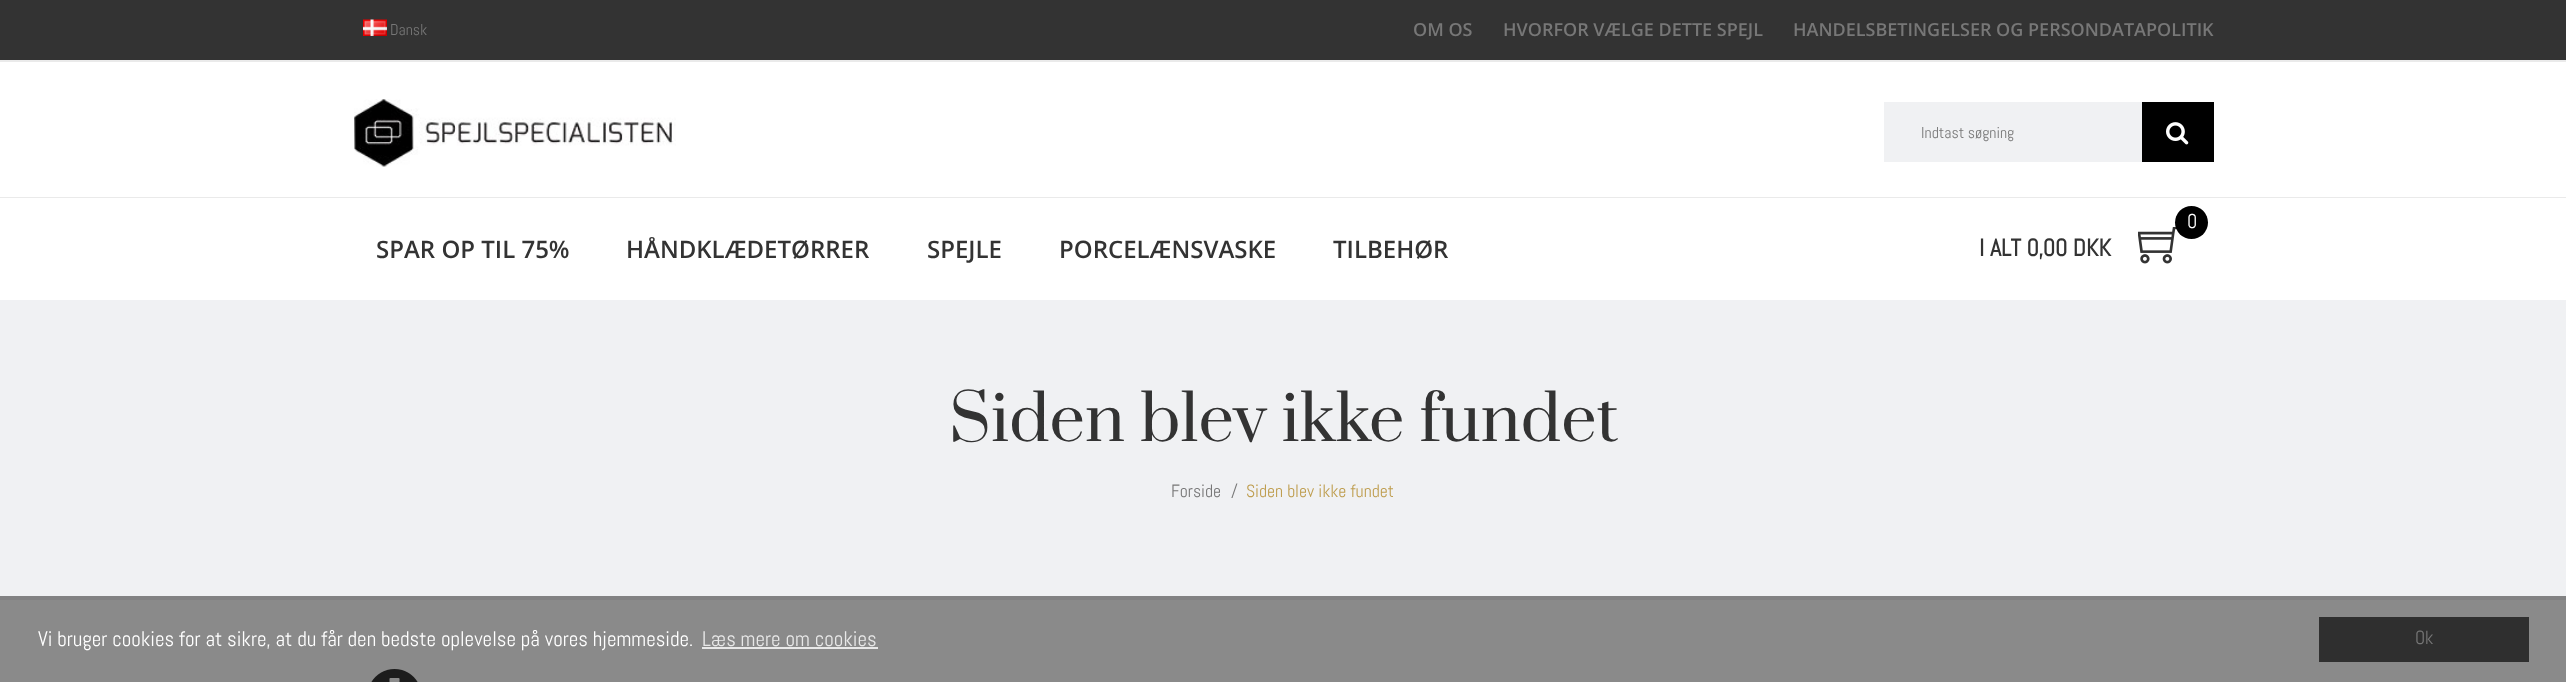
<!DOCTYPE html>
<meta charset="utf-8">
<style>body { margin: 0 } canvas { display: block }</style>
<canvas id="canvas" width="2566" height="682"></canvas>
<img id="img1" src="images/1.png" hidden>
<img id="img2" src="images/2.png" hidden>
<img id="img3" src="images/3.png" hidden>
<img id="img4" src="images/4.png" hidden>
<img id="img5" src="images/5.png" hidden>
<script>
window.onload = function () {
    const canvas = document.getElementById('canvas');
    const context = canvas.getContext('2d');
    context.miterLimit = 4;
    context.fontKerning = 'normal';

    context.fillStyle = 'rgb(255, 255, 255)';
    context.fillRect(0, 0, 2566, 682);
    context.fillStyle = 'rgb(138, 138, 138)';
    context.fillRect(0, 600, 2566, 82);
    context.fillStyle = 'rgb(51, 51, 51)';
    context.fillRect(0, 0, 2566, 60);
    context.drawImage(document.getElementById('img1'), 363, 19, 24, 17);
    context.fillStyle = 'rgb(234, 234, 234)';
    context.fillRect(0, 60, 2566, 2);
    context.fillRect(0, 197, 2566, 1);
    context.drawImage(document.getElementById('img2'), 354, 99, 322, 68);
    context.fillStyle = 'rgb(240, 241, 243)';
    context.fillRect(1884, 102, 258, 60);
    context.fillStyle = 'rgb(0, 0, 0)';
    context.fillRect(2142, 102, 72, 60);
    context.drawImage(document.getElementById('img3'), 2166, 122, 23, 23);
    context.drawImage(document.getElementById('img4'), 2138, 227, 39, 37);
    context.beginPath();
    context.arc(2191.5, 222.5, 16.5, 0, 2 * Math.PI);
    context.fill();
    context.fillStyle = 'rgb(240, 241, 243)';
    context.fillRect(0, 300, 2566, 296);
    context.fillStyle = 'rgb(130, 130, 131)';
    context.fillRect(0, 596, 2566, 4);
    context.fillStyle = 'rgb(232, 232, 232)';
    context.fillRect(702, 647, 176, 2);
    context.fillStyle = 'rgb(47, 47, 47)';
    context.fillRect(2319, 617, 210, 45);
    context.drawImage(document.getElementById('img5'), 371, 669, 47, 13);
    context.font = '15.75px Abel';
    context.fillStyle = 'rgb(119, 119, 119)';
    context.fillText('Dansk', 390, 35);
    context.font = '600 18px Open Sans';
    context.fillText('OM OS', 1413, 36);
    context.fillText('HVORFOR VÆLGE DETTE SPEJL', 1503, 36);
    context.fillText('HANDELSBETINGELSER OG PERSONDATAPOLITIK', 1793, 36);
    context.font = '15.75px Abel';
    context.fillText('Indtast søgning', 1921, 138);
    context.font = '600 24px Open Sans';
    context.fillStyle = 'rgb(51, 51, 51)';
    context.fillText('SPAR OP TIL 75%', 376, 258);
    context.fillText('HÅNDKLÆDETØRRER', 626, 258);
    context.fillText('SPEJLE', 927, 258);
    context.fillText('PORCELÆNSVASKE', 1059, 258);
    context.fillText('TILBEHØR', 1333, 258);
    context.font = '20px Abel';
    context.fillStyle = 'rgb(255, 255, 255)';
    context.fillText('0', 2187, 228);
    context.font = 'bold 24px Abel';
    context.fillStyle = 'rgb(51, 51, 51)';
    context.fillText('I ALT 0,00 DKK', 1979, 256);
    context.font = '63px Prata';
    context.fillText('Siden blev ikke fundet', 949, 441);
    context.font = '17.75px Abel';
    context.fillStyle = 'rgb(119, 119, 119)';
    context.fillText('Forside', 1171, 497);
    context.fillText('/', 1231, 497);
    context.fillStyle = 'rgb(191, 158, 80)';
    context.fillText('Siden blev ikke fundet', 1246, 497);
    context.font = '21px Abel';
    context.fillStyle = 'rgb(255, 255, 255)';
    context.fillText('Vi bruger cookies for at sikre, at du får den bedste oplevelse på vores hjemmeside.', 38, 646);
    context.fillStyle = 'rgb(232, 232, 232)';
    context.fillText('Læs mere om cookies', 702, 646);
    context.font = '19px Abel';
    context.fillStyle = 'rgb(119, 119, 119)';
    context.fillText('Ok', 2415, 644);
};
</script>
